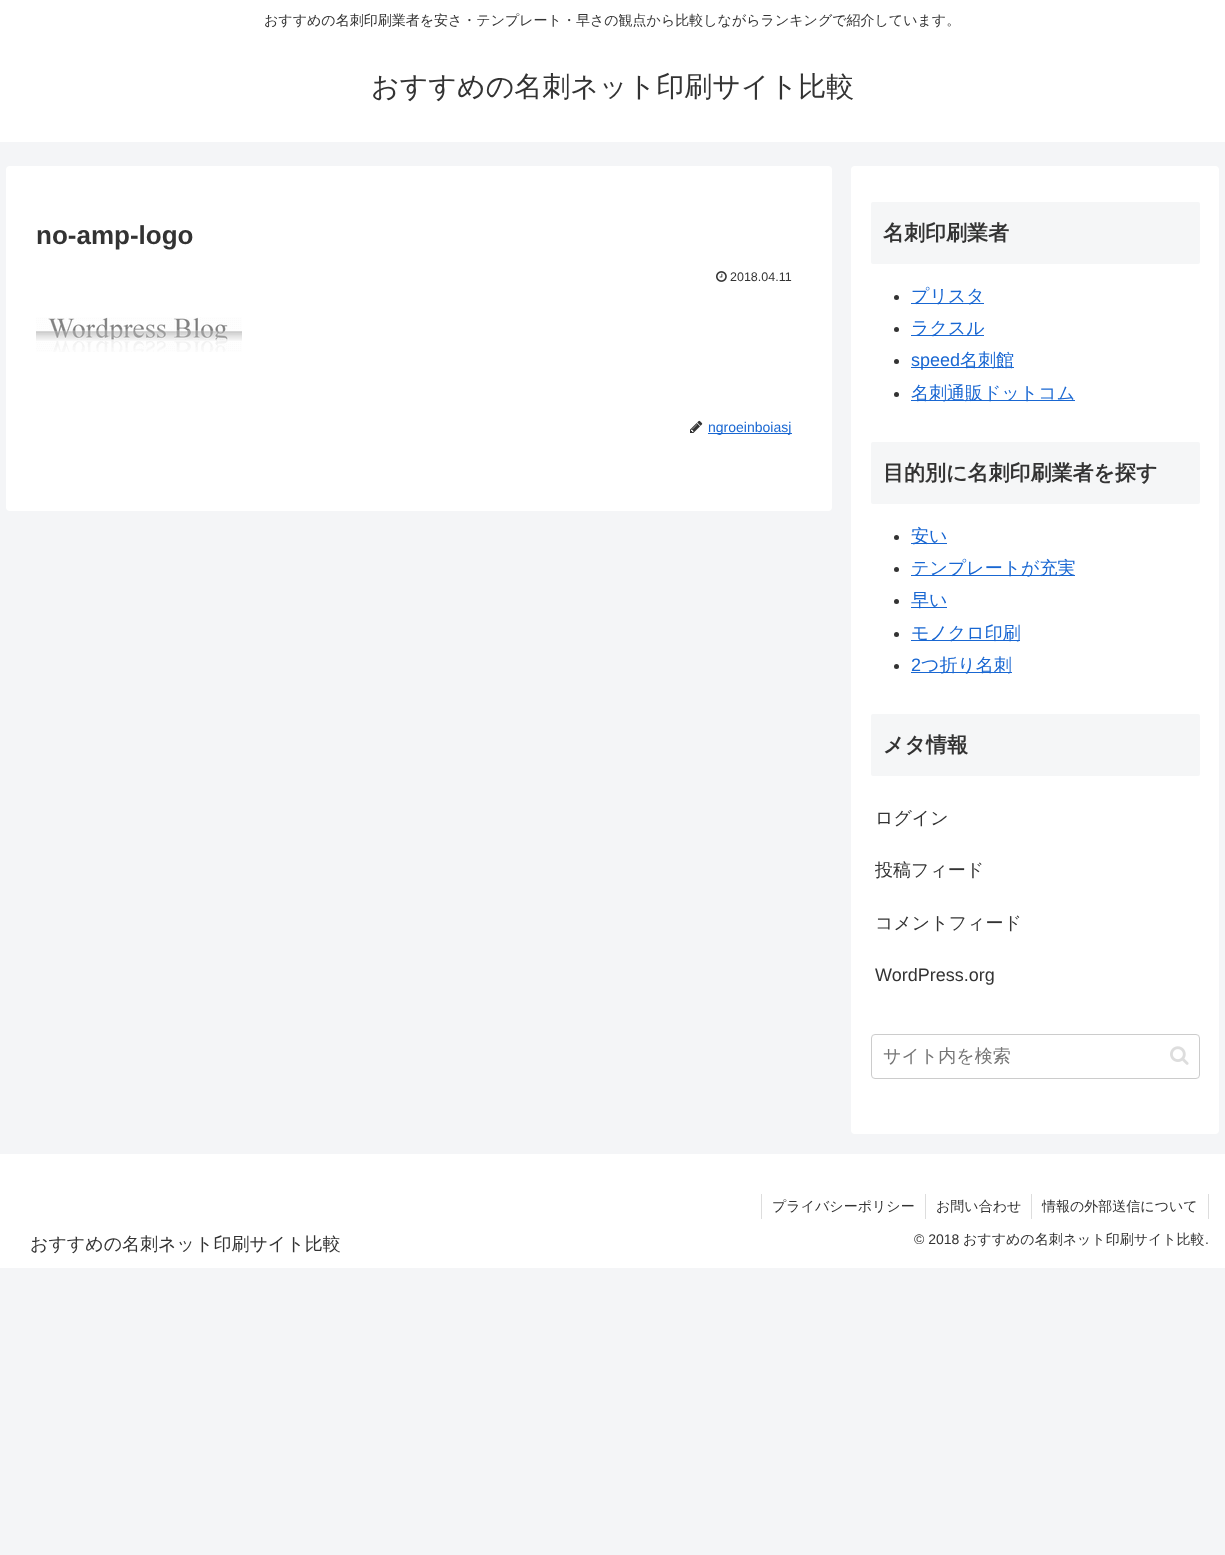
<!DOCTYPE html>
<meta charset="utf-8">
<style>body { margin: 0 } canvas { display: block }</style>
<canvas id="canvas" width="1225" height="1555"></canvas>
<img id="img1" src="images/1.png" hidden>
<img id="img2" src="images/2.png" hidden>
<img id="img3" src="images/3.png" hidden>
<img id="img4" src="images/4.png" hidden>
<script>
window.onload = function () {
    const canvas = document.getElementById('canvas');
    const context = canvas.getContext('2d');
    context.miterLimit = 4;
    context.fontKerning = 'normal';

    context.fillStyle = 'rgb(244, 245, 247)';
    context.fillRect(0, 0, 1225, 1555);
    context.fillStyle = 'rgb(255, 255, 255)';
    context.fillRect(0, 0, 1225, 142);
    context.beginPath();
    context.roundRect(6, 166, 826, 345, 4);
    context.fill();
    context.drawImage(document.getElementById('img1'), 716, 271, 11, 11);
    context.drawImage(document.getElementById('img2'), 36, 317, 206, 35);
    context.drawImage(document.getElementById('img3'), 690, 420, 13, 13);
    context.fillStyle = 'rgb(25, 103, 210)';
    context.fillRect(708, 433, 84, 1);
    context.fillStyle = 'rgb(255, 255, 255)';
    context.beginPath();
    context.roundRect(851, 166, 368, 968, 4);
    context.fill();
    context.fillStyle = 'rgb(245, 246, 247)';
    context.beginPath();
    context.roundRect(871, 202, 329, 62, 2);
    context.fill();
    context.fillStyle = 'rgb(51, 51, 51)';
    context.beginPath();
    context.arc(896.5, 297.5, 2.5, 0, 2 * Math.PI);
    context.fill();
    context.fillStyle = 'rgb(25, 103, 210)';
    context.fillRect(911, 303, 73, 1);
    context.fillStyle = 'rgb(51, 51, 51)';
    context.beginPath();
    context.arc(896.5, 329.5, 2.5, 0, 2 * Math.PI);
    context.fill();
    context.fillStyle = 'rgb(25, 103, 210)';
    context.fillRect(911, 335, 73, 1);
    context.fillStyle = 'rgb(51, 51, 51)';
    context.beginPath();
    context.arc(896.5, 361.5, 2.5, 0, 2 * Math.PI);
    context.fill();
    context.fillStyle = 'rgb(25, 103, 210)';
    context.fillRect(911, 367, 103, 1);
    context.fillStyle = 'rgb(51, 51, 51)';
    context.beginPath();
    context.arc(896.5, 394.5, 2.5, 0, 2 * Math.PI);
    context.fill();
    context.fillStyle = 'rgb(25, 103, 210)';
    context.fillRect(911, 400, 164, 1);
    context.fillStyle = 'rgb(245, 246, 247)';
    context.beginPath();
    context.roundRect(871, 442, 329, 62, 2);
    context.fill();
    context.fillStyle = 'rgb(51, 51, 51)';
    context.beginPath();
    context.arc(896.5, 537.5, 2.5, 0, 2 * Math.PI);
    context.fill();
    context.fillStyle = 'rgb(25, 103, 210)';
    context.fillRect(911, 543, 36, 1);
    context.fillStyle = 'rgb(51, 51, 51)';
    context.beginPath();
    context.arc(896.5, 569.5, 2.5, 0, 2 * Math.PI);
    context.fill();
    context.fillStyle = 'rgb(25, 103, 210)';
    context.fillRect(911, 575, 164, 1);
    context.fillStyle = 'rgb(51, 51, 51)';
    context.beginPath();
    context.arc(896.5, 601.5, 2.5, 0, 2 * Math.PI);
    context.fill();
    context.fillStyle = 'rgb(25, 103, 210)';
    context.fillRect(911, 607, 36, 1);
    context.fillStyle = 'rgb(51, 51, 51)';
    context.beginPath();
    context.arc(896.5, 634.5, 2.5, 0, 2 * Math.PI);
    context.fill();
    context.fillStyle = 'rgb(25, 103, 210)';
    context.fillRect(911, 640, 109, 1);
    context.fillStyle = 'rgb(51, 51, 51)';
    context.beginPath();
    context.arc(896.5, 666.5, 2.5, 0, 2 * Math.PI);
    context.fill();
    context.fillStyle = 'rgb(25, 103, 210)';
    context.fillRect(911, 672, 101, 1);
    context.fillStyle = 'rgb(245, 246, 247)';
    context.beginPath();
    context.roundRect(871, 714, 329, 62, 2);
    context.fill();
    context.beginPath();
    context.roundRect(871.5, 1034.5, 328, 44, 3.5);
    context.strokeStyle = 'rgb(204, 204, 204)';
    context.stroke();
    context.drawImage(document.getElementById('img4'), 1170, 1046, 19, 19);
    context.fillStyle = 'rgb(255, 255, 255)';
    context.fillRect(0, 1154, 1225, 114);
    context.fillStyle = 'rgb(221, 221, 221)';
    context.fillRect(761, 1194, 1, 25);
    context.fillRect(925, 1194, 1, 25);
    context.fillRect(1208, 1194, 1, 25);
    context.fillRect(1031, 1194, 1, 25);
    context.font = '500 14px WenQuanYi Zen Hei';
    context.fillStyle = 'rgb(51, 51, 51)';
    context.fillText('おすすめの名刺印刷業者を安さ・テンプレート・早さの観点から比較しながらランキングで紹介しています。', 264, 25);
    context.font = '500 28px WenQuanYi Zen Hei';
    context.fillText('おすすめの名刺ネット印刷サイト比較', 371, 96);
    context.font = 'bold 26px Liberation Sans';
    context.fillText('no-amp-logo', 36, 244);
    context.font = '12.5px Liberation Sans';
    context.fillText('2018.04.11', 730, 281);
    context.font = '14px Liberation Sans';
    context.fillStyle = 'rgb(25, 103, 210)';
    context.fillText('ngroeinboiasj', 708, 432);
    context.font = 'bold 21px WenQuanYi Zen Hei';
    context.fillStyle = 'rgb(51, 51, 51)';
    context.fillText('名刺印刷業者', 883, 240);
    context.font = '500 18px WenQuanYi Zen Hei';
    context.fillStyle = 'rgb(25, 103, 210)';
    context.fillText('プリスタ', 911, 302);
    context.fillText('ラクスル', 911, 334);
    context.font = '18px Liberation Sans';
    context.fillText('speed', 911, 366);
    context.font = '500 18px WenQuanYi Zen Hei';
    context.fillText('名刺館', 960, 366);
    context.fillText('名刺通販ドットコム', 911, 399);
    context.font = 'bold 21px WenQuanYi Zen Hei';
    context.fillStyle = 'rgb(51, 51, 51)';
    context.fillText('目的別に名刺印刷業者を探す', 883, 480);
    context.font = '500 18px WenQuanYi Zen Hei';
    context.fillStyle = 'rgb(25, 103, 210)';
    context.fillText('安い', 911, 542);
    context.fillText('テンプレートが充実', 911, 574);
    context.fillText('早い', 911, 606);
    context.fillText('モノクロ印刷', 911, 639);
    context.font = '18px Liberation Sans';
    context.fillText('2', 911, 671);
    context.font = '500 18px WenQuanYi Zen Hei';
    context.fillText('つ折り名刺', 921, 671);
    context.font = 'bold 21px WenQuanYi Zen Hei';
    context.fillStyle = 'rgb(51, 51, 51)';
    context.fillText('メタ情報', 883, 752);
    context.font = '500 18px WenQuanYi Zen Hei';
    context.fillText('ログイン', 875, 824);
    context.fillText('投稿フィード', 875, 876);
    context.fillText('コメントフィード', 875, 929);
    context.font = '18px Liberation Sans';
    context.fillText('WordPress.org', 875, 981);
    context.font = '500 18px WenQuanYi Zen Hei';
    context.fillStyle = 'rgb(117, 117, 117)';
    context.fillText('サイト内を検索', 883, 1062);
    context.fillStyle = 'rgb(51, 51, 51)';
    context.fillText('おすすめの名刺ネット印刷サイト比較', 30, 1250);
    context.font = '500 14px WenQuanYi Zen Hei';
    context.fillText('プライバシーポリシー', 772, 1211);
    context.fillText('お問い合わせ', 936, 1211);
    context.fillText('情報の外部送信について', 1042, 1211);
    context.font = '14px Liberation Sans';
    context.fillText('© 2018', 914, 1244);
    context.font = '500 14px WenQuanYi Zen Hei';
    context.fillText('おすすめの名刺ネット印刷サイト比較', 963, 1244);
    context.font = '14px Liberation Sans';
    context.fillText('.', 1205, 1244);
};
</script>
